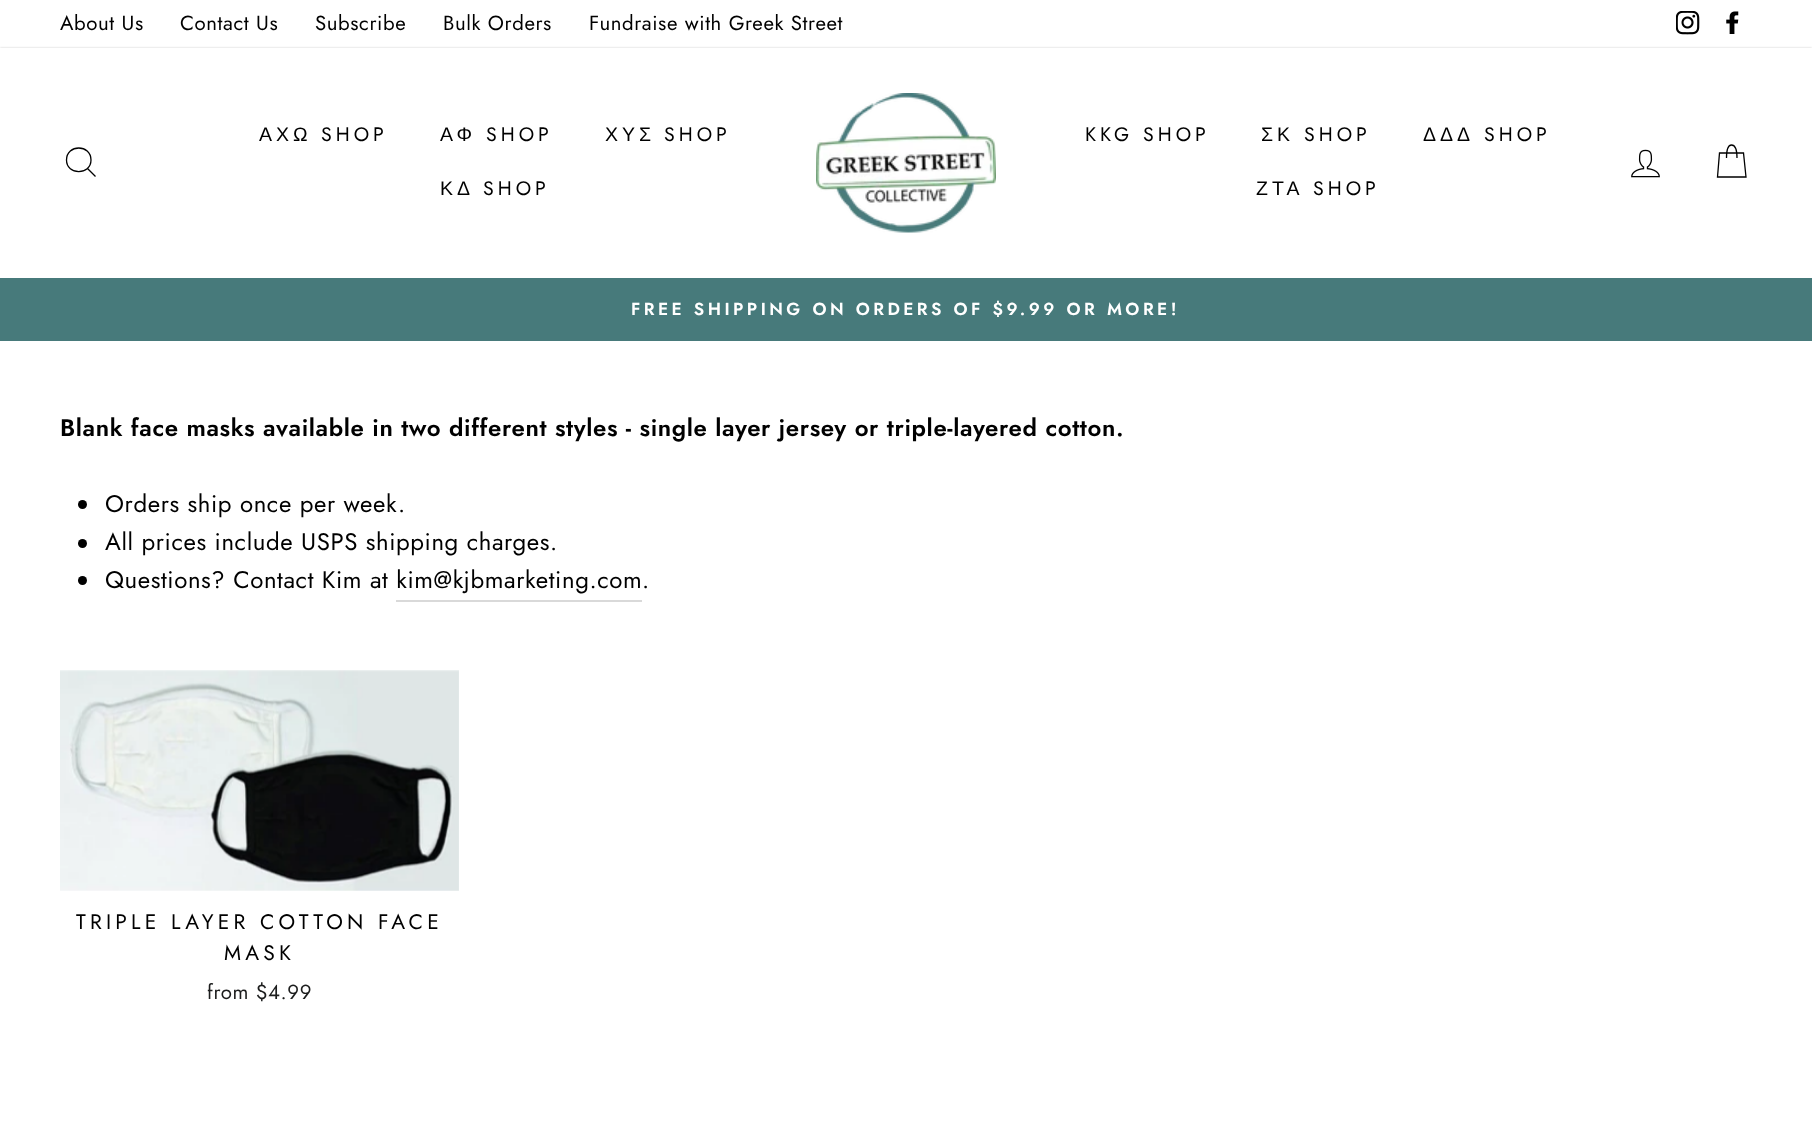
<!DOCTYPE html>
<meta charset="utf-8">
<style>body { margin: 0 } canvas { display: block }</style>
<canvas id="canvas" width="1812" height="1146"></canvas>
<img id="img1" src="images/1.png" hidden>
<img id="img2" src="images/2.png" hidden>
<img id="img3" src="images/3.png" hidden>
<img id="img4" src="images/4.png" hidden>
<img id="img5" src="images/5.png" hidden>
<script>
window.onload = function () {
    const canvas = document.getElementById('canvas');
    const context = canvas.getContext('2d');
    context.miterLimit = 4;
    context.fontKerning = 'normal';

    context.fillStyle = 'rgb(255, 255, 255)';
    context.fillRect(0, 0, 1812, 1146);
    context.drawImage(document.getElementById('img1'), 1676, 11, 24, 24);
    context.drawImage(document.getElementById('img2'), 1726, 11, 13, 23);
    context.fillStyle = 'rgba(0, 0, 0, 0.2)';
    context.filter = 'blur(1px)';
    context.beginPath();
    context.rect(0, 48, 1812, 230);
    context.fill();
    context.filter = 'none';
    context.fillStyle = 'rgb(255, 255, 255)';
    context.fillRect(0, 48, 1812, 230);
    context.beginPath();
    context.moveTo(91, 160);
    context.bezierCurveTo(91, 175.5, 66.5, 175.5, 66.5, 160);
    context.bezierCurveTo(66.5, 144, 91, 144, 91, 160);
    context.closePath();
    context.moveTo(95.5, 176.5);
    context.lineTo(87.5, 168.5);
    context.strokeStyle = 'rgb(0, 0, 0)';
    context.lineWidth = 1.3;
    context.stroke();
    context.drawImage(document.getElementById('img3'), 816, 93, 180, 140);
    context.drawImage(document.getElementById('img4'), 1631, 149, 29, 29);
    context.beginPath();
    context.moveTo(1726.5, 158);
    context.bezierCurveTo(1726.5, 147.5, 1728.5, 145, 1731.5, 145);
    context.bezierCurveTo(1734.5, 145, 1737, 147.5, 1737, 158);
    context.moveTo(1719.5, 153);
    context.lineTo(1743.5, 153);
    context.lineTo(1746, 177);
    context.lineTo(1717.5, 177);
    context.closePath();
    context.stroke();
    context.fillStyle = 'rgb(71, 122, 123)';
    context.fillRect(0, 278, 1812, 63);
    context.fillStyle = 'rgb(0, 0, 0)';
    context.beginPath();
    context.arc(82.5, 504.5, 4.5, 0, 2 * Math.PI);
    context.fill();
    context.beginPath();
    context.arc(82.5, 543.5, 4.5, 0, 2 * Math.PI);
    context.fill();
    context.beginPath();
    context.arc(82.5, 580.5, 4.5, 0, 2 * Math.PI);
    context.fill();
    context.fillStyle = 'rgb(217, 217, 217)';
    context.fillRect(396, 600, 246, 2);
    context.drawImage(document.getElementById('img5'), 60, 670, 399, 221);
    context.letterSpacing = '0.6px';
    context.font = '20.4px Jost';
    context.fillStyle = 'rgb(0, 0, 0)';
    context.fillText('About Us', 60, 30);
    context.fillText('Contact Us', 180, 30);
    context.fillText('Subscribe', 315, 30);
    context.fillText('Bulk Orders', 443, 30);
    context.fillText('Fundraise with Greek Street', 589, 30);
    context.letterSpacing = '4px';
    context.font = '19.5px Liberation Sans';
    context.fillText('ΑΧΩ', 259, 141);
    context.font = '19.5px Jost';
    context.fillText('SHOP', 321, 141);
    context.font = '19.5px Liberation Sans';
    context.fillText('ΑΦ', 440, 141);
    context.font = '19.5px Jost';
    context.fillText('SHOP', 486, 141);
    context.font = '19.5px Liberation Sans';
    context.fillText('ΧΥΣ', 605, 141);
    context.font = '19.5px Jost';
    context.fillText('SHOP', 664, 141);
    context.font = '19.5px Liberation Sans';
    context.fillText('ΚΔ', 440, 195);
    context.font = '19.5px Jost';
    context.fillText('SHOP', 483, 195);
    context.fillText('KKG SHOP', 1085, 141);
    context.font = '19.5px Liberation Sans';
    context.fillText('ΣΚ', 1261, 141);
    context.font = '19.5px Jost';
    context.fillText('SHOP', 1304, 141);
    context.font = '19.5px Liberation Sans';
    context.fillText('ΔΔΔ', 1423, 141);
    context.font = '19.5px Jost';
    context.fillText('SHOP', 1484, 141);
    context.font = '19.5px Liberation Sans';
    context.fillText('ΖΤΑ', 1256, 195);
    context.font = '19.5px Jost';
    context.fillText('SHOP', 1313, 195);
    context.letterSpacing = '3.45px';
    context.font = '600 17.35px Jost';
    context.fillStyle = 'rgb(255, 255, 255)';
    context.fillText('FREE SHIPPING ON ORDERS OF $9.99 OR MORE!', 631, 315);
    context.letterSpacing = '0.6px';
    context.font = '600 24px Jost';
    context.fillStyle = 'rgb(0, 0, 0)';
    context.fillText('Blank face masks available in two different styles - single layer jersey or triple-layered cotton.', 60, 436);
    context.font = '24px Jost';
    context.fillText('Orders ship once per week.', 105, 512);
    context.fillText('All prices include USPS shipping charges.', 105, 550);
    context.fillText('Questions? Contact Kim at kim@kjbmarketing.com', 105, 588);
    context.fillText('.', 642, 588);
    context.letterSpacing = '4.2px';
    context.font = '21px Jost';
    context.fillText('TRIPLE LAYER COTTON FACE', 76, 929);
    context.fillText('MASK', 224, 960);
    context.letterSpacing = '0.6px';
    context.font = '20.4px Jost';
    context.fillStyle = 'rgb(28, 29, 29)';
    context.fillText('from $4.99', 207, 999);
};
</script>
